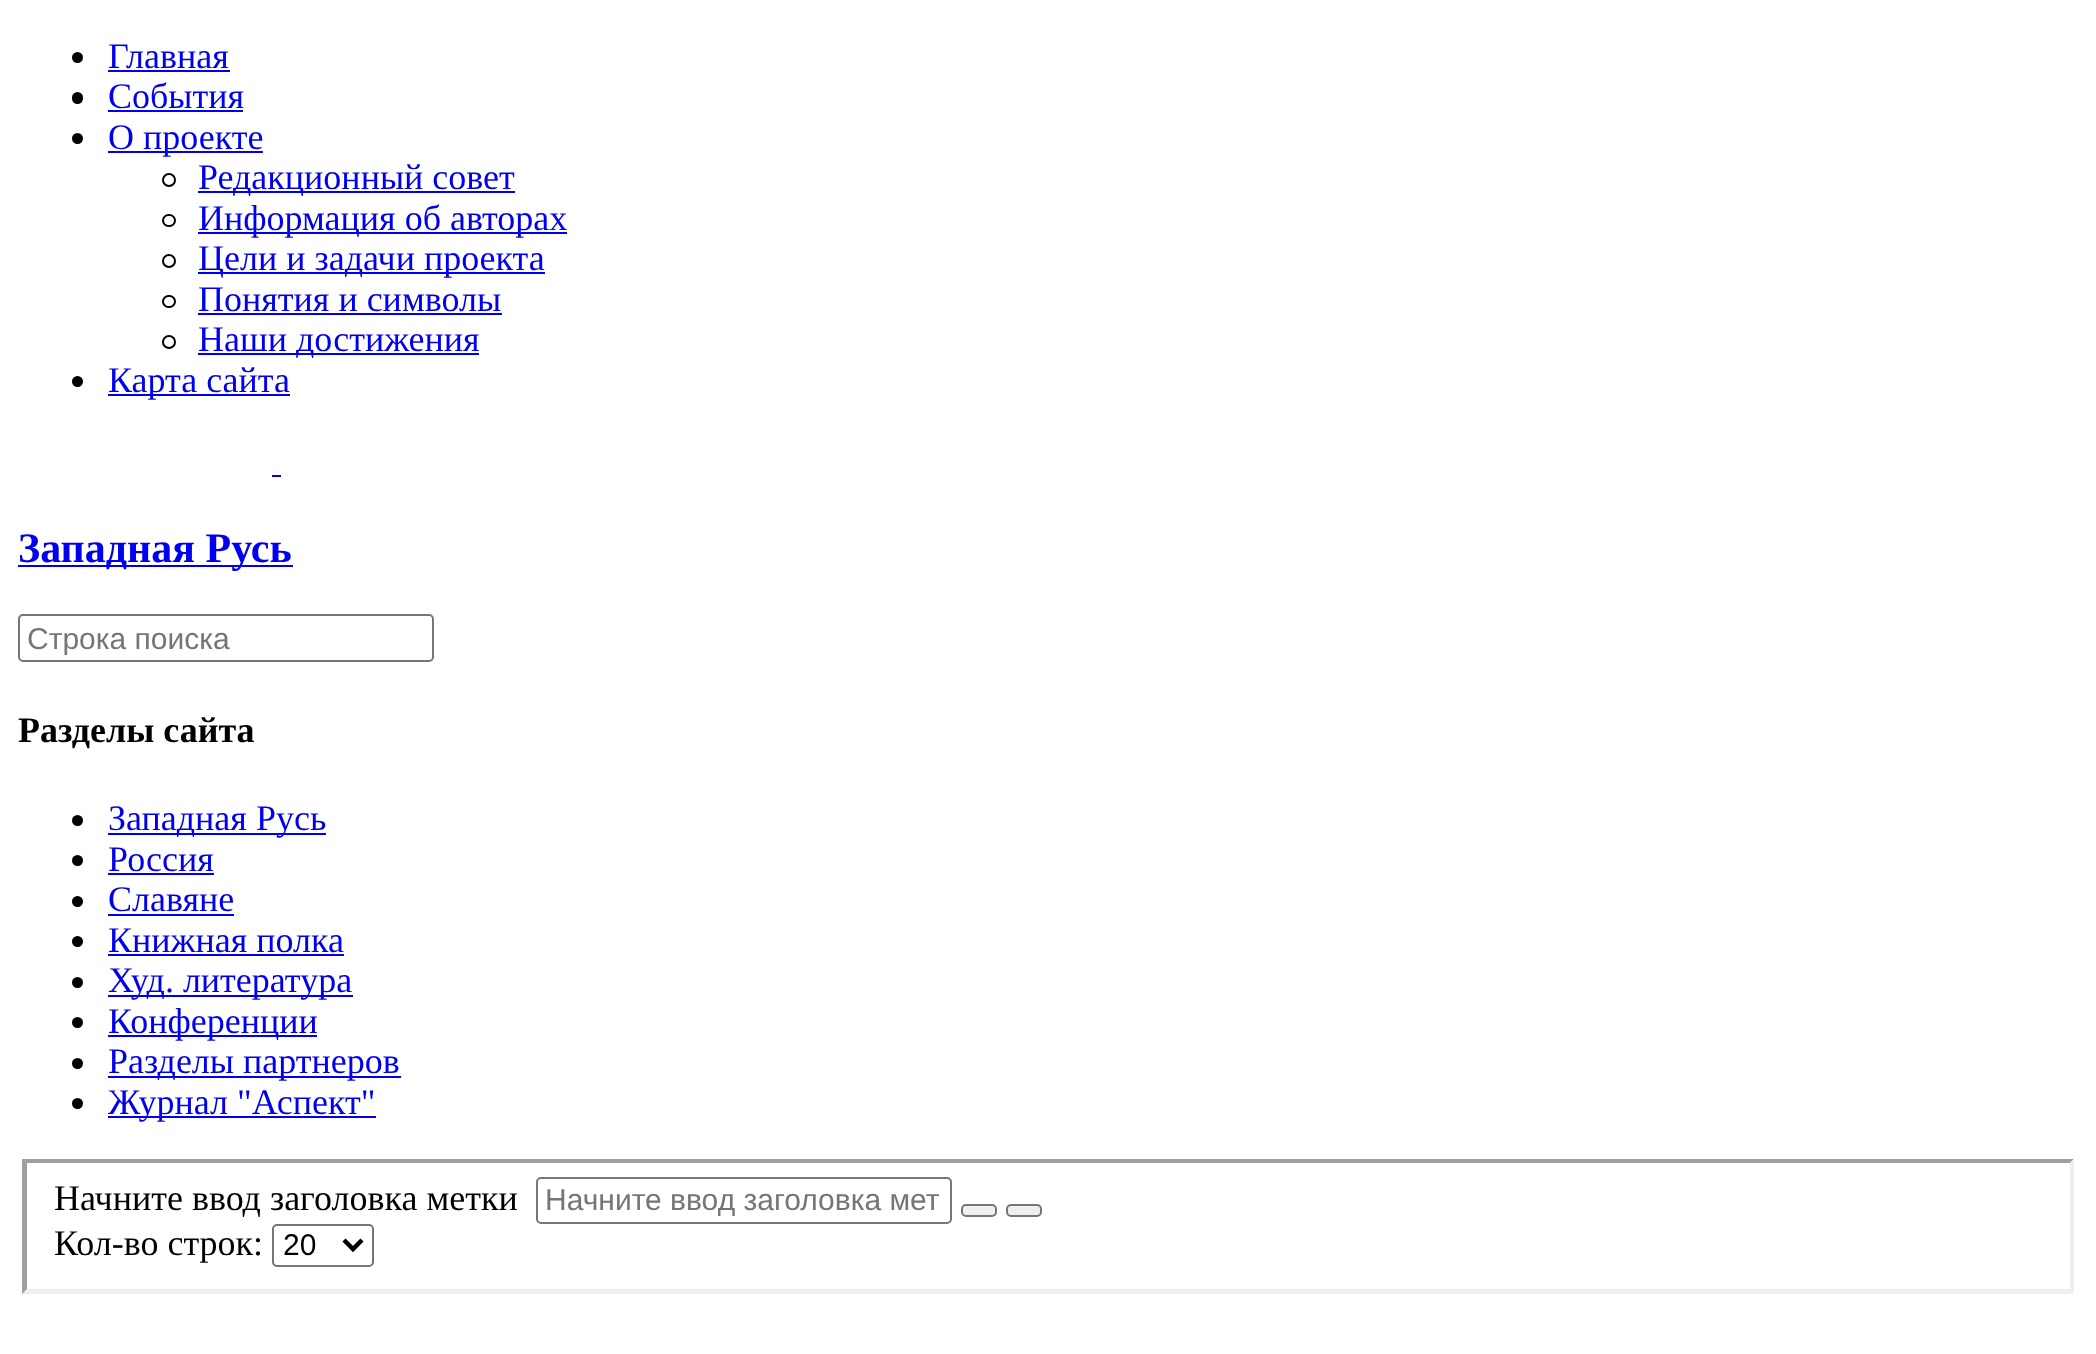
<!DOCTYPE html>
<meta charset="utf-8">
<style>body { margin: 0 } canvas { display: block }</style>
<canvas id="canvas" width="2096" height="1354"></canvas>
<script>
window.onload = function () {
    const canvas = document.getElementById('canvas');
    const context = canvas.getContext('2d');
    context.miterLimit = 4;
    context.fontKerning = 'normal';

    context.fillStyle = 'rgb(255, 255, 255)';
    context.fillRect(0, 0, 2096, 1354);
    context.fillStyle = 'rgb(0, 0, 0)';
    context.beginPath();
    context.arc(77.5, 57.5, 5.5, 0, 2 * Math.PI);
    context.fill();
    context.fillStyle = 'rgb(0, 0, 238)';
    context.fillRect(108, 70, 122, 2);
    context.fillStyle = 'rgb(0, 0, 0)';
    context.beginPath();
    context.roundRect(72, 92, 11, 12, 5.5);
    context.fill();
    context.fillStyle = 'rgb(0, 0, 238)';
    context.fillRect(108, 110, 135, 2);
    context.fillStyle = 'rgb(0, 0, 0)';
    context.beginPath();
    context.arc(77.5, 138.5, 5.5, 0, 2 * Math.PI);
    context.fill();
    context.fillStyle = 'rgb(0, 0, 238)';
    context.fillRect(108, 151, 155, 2);
    context.beginPath();
    context.arc(169, 180, 6, 0, 2 * Math.PI);
    context.strokeStyle = 'rgb(0, 0, 0)';
    context.lineWidth = 2;
    context.stroke();
    context.fillRect(198, 191, 317, 2);
    context.beginPath();
    context.roundRect(163, 215, 12, 11, 5.5);
    context.stroke();
    context.fillRect(198, 232, 369, 2);
    context.beginPath();
    context.arc(169, 261, 6, 0, 2 * Math.PI);
    context.stroke();
    context.fillRect(198, 272, 347, 2);
    context.beginPath();
    context.roundRect(163, 296, 12, 11, 5.5);
    context.stroke();
    context.fillRect(198, 313, 304, 2);
    context.beginPath();
    context.arc(169, 342, 6, 0, 2 * Math.PI);
    context.stroke();
    context.fillRect(198, 353, 281, 2);
    context.fillStyle = 'rgb(0, 0, 0)';
    context.beginPath();
    context.arc(77.5, 381.5, 5.5, 0, 2 * Math.PI);
    context.fill();
    context.fillStyle = 'rgb(0, 0, 238)';
    context.fillRect(108, 394, 182, 2);
    context.fillRect(272, 475, 9, 2);
    context.fillRect(18, 565, 275, 2);
    context.beginPath();
    context.roundRect(19, 615, 414, 46, 4);
    context.strokeStyle = 'rgb(118, 118, 118)';
    context.stroke();
    context.fillStyle = 'rgb(0, 0, 0)';
    context.beginPath();
    context.arc(77.5, 820.5, 5.5, 0, 2 * Math.PI);
    context.fill();
    context.fillStyle = 'rgb(0, 0, 238)';
    context.fillRect(108, 833, 218, 2);
    context.fillStyle = 'rgb(0, 0, 0)';
    context.beginPath();
    context.arc(77.5, 860.5, 5.5, 0, 2 * Math.PI);
    context.fill();
    context.fillStyle = 'rgb(0, 0, 238)';
    context.fillRect(108, 873, 106, 2);
    context.fillStyle = 'rgb(0, 0, 0)';
    context.beginPath();
    context.arc(77.5, 901.5, 5.5, 0, 2 * Math.PI);
    context.fill();
    context.fillStyle = 'rgb(0, 0, 238)';
    context.fillRect(108, 914, 126, 2);
    context.fillStyle = 'rgb(0, 0, 0)';
    context.beginPath();
    context.arc(77.5, 941.5, 5.5, 0, 2 * Math.PI);
    context.fill();
    context.fillStyle = 'rgb(0, 0, 238)';
    context.fillRect(108, 954, 236, 2);
    context.fillStyle = 'rgb(0, 0, 0)';
    context.beginPath();
    context.arc(77.5, 982.5, 5.5, 0, 2 * Math.PI);
    context.fill();
    context.fillStyle = 'rgb(0, 0, 238)';
    context.fillRect(108, 995, 245, 2);
    context.fillStyle = 'rgb(0, 0, 0)';
    context.beginPath();
    context.arc(77.5, 1022.5, 5.5, 0, 2 * Math.PI);
    context.fill();
    context.fillStyle = 'rgb(0, 0, 238)';
    context.fillRect(108, 1035, 209, 2);
    context.fillStyle = 'rgb(0, 0, 0)';
    context.beginPath();
    context.arc(77.5, 1063.5, 5.5, 0, 2 * Math.PI);
    context.fill();
    context.fillStyle = 'rgb(0, 0, 238)';
    context.fillRect(108, 1076, 293, 2);
    context.fillStyle = 'rgb(0, 0, 0)';
    context.beginPath();
    context.arc(77.5, 1103.5, 5.5, 0, 2 * Math.PI);
    context.fill();
    context.fillStyle = 'rgb(0, 0, 238)';
    context.fillRect(108, 1116, 268, 2);
    context.fillStyle = 'rgb(159, 159, 159)';
    context.beginPath();
    context.moveTo(22, 1159);
    context.lineTo(2074, 1159);
    context.lineTo(2070, 1163);
    context.lineTo(27, 1163);
    context.closePath();
    context.fill();
    context.fillStyle = 'rgb(239, 239, 239)';
    context.beginPath();
    context.moveTo(2074, 1159);
    context.lineTo(2074, 1294);
    context.lineTo(2070, 1289);
    context.lineTo(2070, 1163);
    context.closePath();
    context.fill();
    context.beginPath();
    context.moveTo(2074, 1294);
    context.lineTo(22, 1294);
    context.lineTo(27, 1289);
    context.lineTo(2070, 1289);
    context.closePath();
    context.fill();
    context.fillStyle = 'rgb(159, 159, 159)';
    context.beginPath();
    context.moveTo(22, 1294);
    context.lineTo(22, 1159);
    context.lineTo(27, 1163);
    context.lineTo(27, 1289);
    context.closePath();
    context.fill();
    context.beginPath();
    context.roundRect(537, 1178, 414, 45, 4);
    context.stroke();
    context.fillStyle = 'rgb(239, 239, 239)';
    context.beginPath();
    context.roundRect(962, 1205, 34, 11, 4);
    context.fill();
    context.stroke();
    context.beginPath();
    context.roundRect(1007, 1205, 34, 11, 4);
    context.fill();
    context.stroke();
    context.beginPath();
    context.roundRect(273, 1225, 100, 41, 4);
    context.stroke();
    context.beginPath();
    context.moveTo(344, 1240);
    context.lineTo(353, 1249);
    context.lineTo(362, 1240);
    context.strokeStyle = 'rgb(0, 0, 0)';
    context.lineWidth = 4.5;
    context.stroke();
    context.font = '36px Liberation Serif';
    context.fillStyle = 'rgb(0, 0, 238)';
    context.fillText('Главная', 108, 68);
    context.fillText('События', 108, 108);
    context.fillText('О проекте', 108, 149);
    context.fillText('Редакционный совет', 198, 189);
    context.fillText('Информация об авторах', 198, 230);
    context.fillText('Цели и задачи проекта', 198, 270);
    context.fillText('Понятия и символы', 198, 311);
    context.fillText('Наши достижения', 198, 351);
    context.fillText('Карта сайта', 108, 392);
    context.font = 'bold 42px Liberation Serif';
    context.fillText('Западная Русь', 18, 562);
    context.save();
    context.beginPath();
    context.rect(27, 621, 398, 34);
    context.clip();
    context.font = '30px Liberation Sans';
    context.fillStyle = 'rgb(117, 117, 117)';
    context.fillText('Строка поиска', 27, 649);
    context.restore();
    context.font = 'bold 36px Liberation Serif';
    context.fillStyle = 'rgb(0, 0, 0)';
    context.fillText('Разделы сайта', 18, 742);
    context.font = '36px Liberation Serif';
    context.fillStyle = 'rgb(0, 0, 238)';
    context.fillText('Западная Русь', 108, 830);
    context.fillText('Россия', 108, 871);
    context.fillText('Славяне', 108, 911);
    context.fillText('Книжная полка', 108, 952);
    context.fillText('Худ. литература', 108, 992);
    context.fillText('Конференции', 108, 1033);
    context.fillText('Разделы партнеров', 108, 1073);
    context.fillText('Журнал "Аспект"', 108, 1114);
    context.fillStyle = 'rgb(0, 0, 0)';
    context.fillText('Начните ввод заголовка метки', 54, 1210);
    context.font = '30px Liberation Sans';
    context.fillStyle = 'rgb(117, 117, 117)';
    context.fillText('Начните ввод заголовка мет', 545, 1210);
    context.font = '36px Liberation Serif';
    context.fillStyle = 'rgb(0, 0, 0)';
    context.fillText('Кол-во строк:', 54, 1255);
    context.font = '30px Liberation Sans';
    context.fillText('20', 283, 1255);
};
</script>
